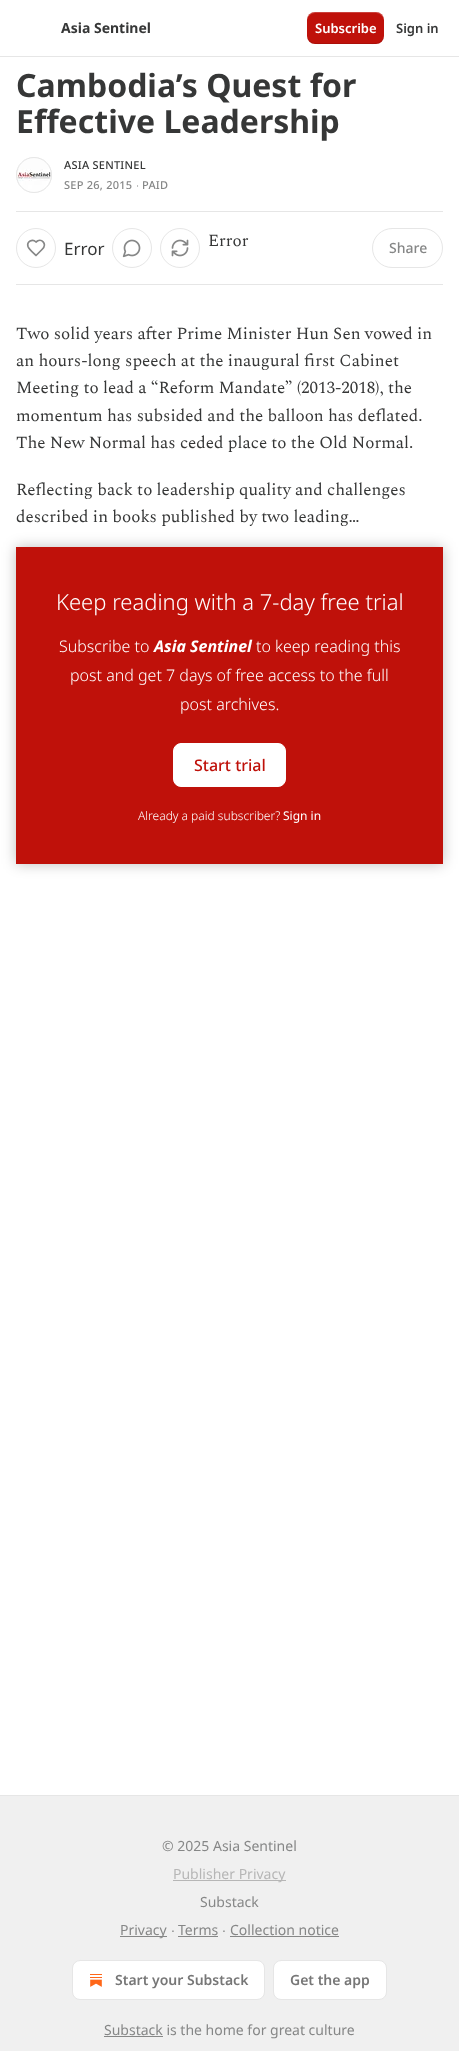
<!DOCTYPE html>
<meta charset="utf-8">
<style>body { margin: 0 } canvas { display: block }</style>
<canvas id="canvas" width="459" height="2051"></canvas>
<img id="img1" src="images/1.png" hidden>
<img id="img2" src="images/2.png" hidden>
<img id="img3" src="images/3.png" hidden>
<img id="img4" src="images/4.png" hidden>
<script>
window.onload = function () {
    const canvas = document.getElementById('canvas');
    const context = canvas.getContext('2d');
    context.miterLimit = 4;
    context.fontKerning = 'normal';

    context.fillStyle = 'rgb(255, 255, 255)';
    context.fillRect(0, 0, 459, 2051);
    context.fillStyle = 'rgb(230, 230, 230)';
    context.fillRect(0, 56, 459, 1);
    context.fillStyle = 'rgb(191, 17, 10)';
    context.beginPath();
    context.roundRect(307, 12, 77, 32, 8);
    context.fill();
    context.fillStyle = 'rgba(0, 0, 0, 0.1)';
    context.beginPath();
    context.moveTo(307, 35);
    context.bezierCurveTo(307, 46, 317, 44, 325, 44);
    context.lineTo(366, 44);
    context.bezierCurveTo(374, 44, 384, 46, 384, 35);
    context.bezierCurveTo(384, 39, 380, 43, 376, 43);
    context.lineTo(315, 43);
    context.bezierCurveTo(311, 43, 307, 39, 307, 35);
    context.closePath();
    context.fill();
    context.fillStyle = 'rgba(255, 255, 255, 0.2)';
    context.beginPath();
    context.moveTo(315, 13);
    context.lineTo(376, 13);
    context.bezierCurveTo(380, 13, 384, 17, 384, 21);
    context.bezierCurveTo(384, 10, 374, 12, 366, 12);
    context.lineTo(325, 12);
    context.bezierCurveTo(317, 12, 307, 10, 307, 21);
    context.bezierCurveTo(307, 17, 311, 13, 315, 13);
    context.closePath();
    context.fill();
    context.beginPath();
    context.arc(34, 175, 17.5, 0, 2 * Math.PI);
    context.strokeStyle = 'rgb(230, 230, 230)';
    context.stroke();
    context.drawImage(document.getElementById('img1'), 16, 157, 36, 36);
    context.beginPath();
    context.arc(34, 175, 17.5, 0, 2 * Math.PI);
    context.stroke();
    context.fillStyle = 'rgb(230, 230, 230)';
    context.fillRect(16, 211, 427, 1);
    context.fillRect(16, 284, 427, 1);
    context.beginPath();
    context.arc(132, 248, 19.5, 0, 2 * Math.PI);
    context.stroke();
    context.drawImage(document.getElementById('img2'), 122, 239, 19, 19);
    context.beginPath();
    context.arc(180, 248, 19.5, 0, 2 * Math.PI);
    context.stroke();
    context.drawImage(document.getElementById('img3'), 171, 239, 18, 18);
    context.beginPath();
    context.arc(36, 248, 19.5, 0, 2 * Math.PI);
    context.stroke();
    context.beginPath();
    context.moveTo(42, 249.5);
    context.bezierCurveTo(48, 243.5, 41, 237.5, 36, 242);
    context.bezierCurveTo(32.5, 238.5, 26.5, 241.5, 28, 246.5);
    context.bezierCurveTo(29, 249.5, 34, 253.5, 36, 255.5);
    context.closePath();
    context.strokeStyle = 'rgb(134, 135, 135)';
    context.lineWidth = 1.7;
    context.lineCap = 'round';
    context.lineJoin = 'round';
    context.stroke();
    context.beginPath();
    context.roundRect(372.5, 228.5, 70, 39, 19.5);
    context.strokeStyle = 'rgb(230, 230, 230)';
    context.lineWidth = 1;
    context.lineJoin = 'miter';
    context.stroke();
    context.fillStyle = 'rgb(191, 17, 10)';
    context.fillRect(16, 547, 427, 317);
    context.fillStyle = 'rgb(255, 255, 255)';
    context.beginPath();
    context.roundRect(173.5, 743.5, 112, 43, 7.5);
    context.fill();
    context.strokeStyle = 'rgb(255, 255, 255)';
    context.stroke();
    context.save();
    context.beginPath();
    context.moveTo(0, 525);
    context.lineTo(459, 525);
    context.lineTo(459, 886);
    context.lineTo(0, 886);
    context.closePath();
    context.moveTo(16, 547);
    context.lineTo(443, 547);
    context.lineTo(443, 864);
    context.lineTo(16, 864);
    context.closePath();
    context.clip('evenodd');
    context.fillStyle = 'rgba(0, 0, 0, 0.25)';
    context.filter = 'blur(7px)';
    context.beginPath();
    context.rect(16, 547, 427, 317);
    context.fill();
    context.filter = 'none';
    context.restore();
    context.fillStyle = 'rgb(240, 240, 240)';
    context.fillRect(0, 1796, 459, 255);
    context.fillStyle = 'rgb(230, 230, 230)';
    context.fillRect(0, 1795, 459, 1);
    context.fillStyle = 'rgb(182, 182, 182)';
    context.fillRect(173, 1880, 113, 1);
    context.fillStyle = 'rgb(134, 135, 135)';
    context.fillRect(120, 1936, 47, 1);
    context.fillRect(178, 1936, 40, 1);
    context.fillRect(230, 1936, 109, 1);
    context.fillStyle = 'rgb(255, 255, 255)';
    context.beginPath();
    context.roundRect(72.5, 1960.5, 192, 39, 7.5);
    context.fill();
    context.strokeStyle = 'rgb(230, 230, 230)';
    context.stroke();
    context.drawImage(document.getElementById('img4'), 90, 1974, 12, 13);
    context.beginPath();
    context.roundRect(273.5, 1960.5, 113, 39, 7.5);
    context.fill();
    context.stroke();
    context.fillStyle = 'rgb(134, 135, 135)';
    context.fillRect(104, 2036, 59, 1);
    context.font = 'bold 14px Noto Sans';
    context.fillStyle = 'rgb(54, 55, 55)';
    context.fillText('Asia Sentinel', 61, 33);
    context.font = '600 13px Noto Sans';
    context.fillStyle = 'rgb(255, 255, 255)';
    context.fillText('Subscribe', 315, 33);
    context.fillStyle = 'rgb(54, 55, 55)';
    context.fillText('Sign in', 396, 33);
    context.font = 'bold 32px Noto Sans';
    context.fillText('Cambodia’s Quest for', 16, 97);
    context.fillText('Effective Leadership', 16, 133);
    context.letterSpacing = '0.25px';
    context.font = '500 11px Noto Sans';
    context.fillText('ASIA SENTINEL', 64, 169);
    context.fillStyle = 'rgb(134, 135, 135)';
    context.fillText('SEP 26, 2015', 64, 189);
    context.font = '11px Liberation Sans';
    context.fillText('∙', 136, 189);
    context.font = '500 11px Noto Sans';
    context.fillText('PAID', 142, 189);
    context.letterSpacing = '0px';
    context.font = '17px Spectral';
    context.fillStyle = 'rgb(54, 55, 55)';
    context.fillText('Error', 208, 246);
    context.font = '17px Noto Sans';
    context.fillText('Error', 64, 255);
    context.font = '500 14px Noto Sans';
    context.fillStyle = 'rgb(134, 135, 135)';
    context.fillText('Share', 389, 253);
    context.font = '17px Spectral';
    context.fillStyle = 'rgb(54, 55, 55)';
    context.fillText('Two solid years after Prime Minister Hun Sen vowed in', 16, 339);
    context.fillText('an hours-long speech at the inaugural first Cabinet', 16, 366);
    context.fillText('Meeting to lead a “Reform Mandate” (2013-2018), the', 16, 393);
    context.fillText('momentum has subsided and the balloon has deflated.', 16, 421);
    context.fillText('The New Normal has ceded place to the Old Normal.', 16, 448);
    context.fillText('Reflecting back to leadership quality and challenges', 16, 495);
    context.fillText('described in books published by two leading…', 16, 522);
    context.font = '300 22px Noto Sans';
    context.fillStyle = 'rgb(255, 255, 255)';
    context.fillText('Keep reading with a 7-day free trial', 56, 610);
    context.font = '300 16px Noto Sans';
    context.fillText('Subscribe to', 59, 652);
    context.font = 'italic bold 16px Noto Sans';
    context.fillText('Asia Sentinel', 154, 652);
    context.font = '300 16px Noto Sans';
    context.fillText('to keep reading this', 256, 652);
    context.fillText('post and get 7 days of free access to the full', 70, 681);
    context.fillText('post archives.', 180, 710);
    context.font = '500 16px Noto Sans';
    context.fillStyle = 'rgb(191, 17, 10)';
    context.fillText('Start trial', 194, 771);
    context.font = '300 12px Noto Sans';
    context.fillStyle = 'rgb(255, 255, 255)';
    context.fillText('Already a paid subscriber?', 138, 820);
    context.font = '12px Noto Sans';
    context.fillText('Sign in', 283, 820);
    context.font = '14px Noto Sans';
    context.fillStyle = 'rgb(134, 135, 135)';
    context.fillText('© 2025 Asia Sentinel', 162, 1851);
    context.fillStyle = 'rgb(182, 182, 182)';
    context.fillText('Publisher Privacy', 173, 1879);
    context.fillStyle = 'rgb(134, 135, 135)';
    context.fillText('Substack', 200, 1907);
    context.fillText('Privacy', 120, 1935);
    context.font = '14px Liberation Sans';
    context.fillText('∙', 171, 1935);
    context.font = '14px Noto Sans';
    context.fillText('Terms', 178, 1935);
    context.font = '14px Liberation Sans';
    context.fillText('∙', 222, 1935);
    context.font = '14px Noto Sans';
    context.fillText('Collection notice', 230, 1935);
    context.font = '600 14px Noto Sans';
    context.fillStyle = 'rgb(119, 119, 119)';
    context.fillText('Start your Substack', 115, 1985);
    context.fillText('Get the app', 290, 1985);
    context.font = '14px Noto Sans';
    context.fillStyle = 'rgb(134, 135, 135)';
    context.fillText('Substack is the home for great culture', 104, 2035);
};
</script>
